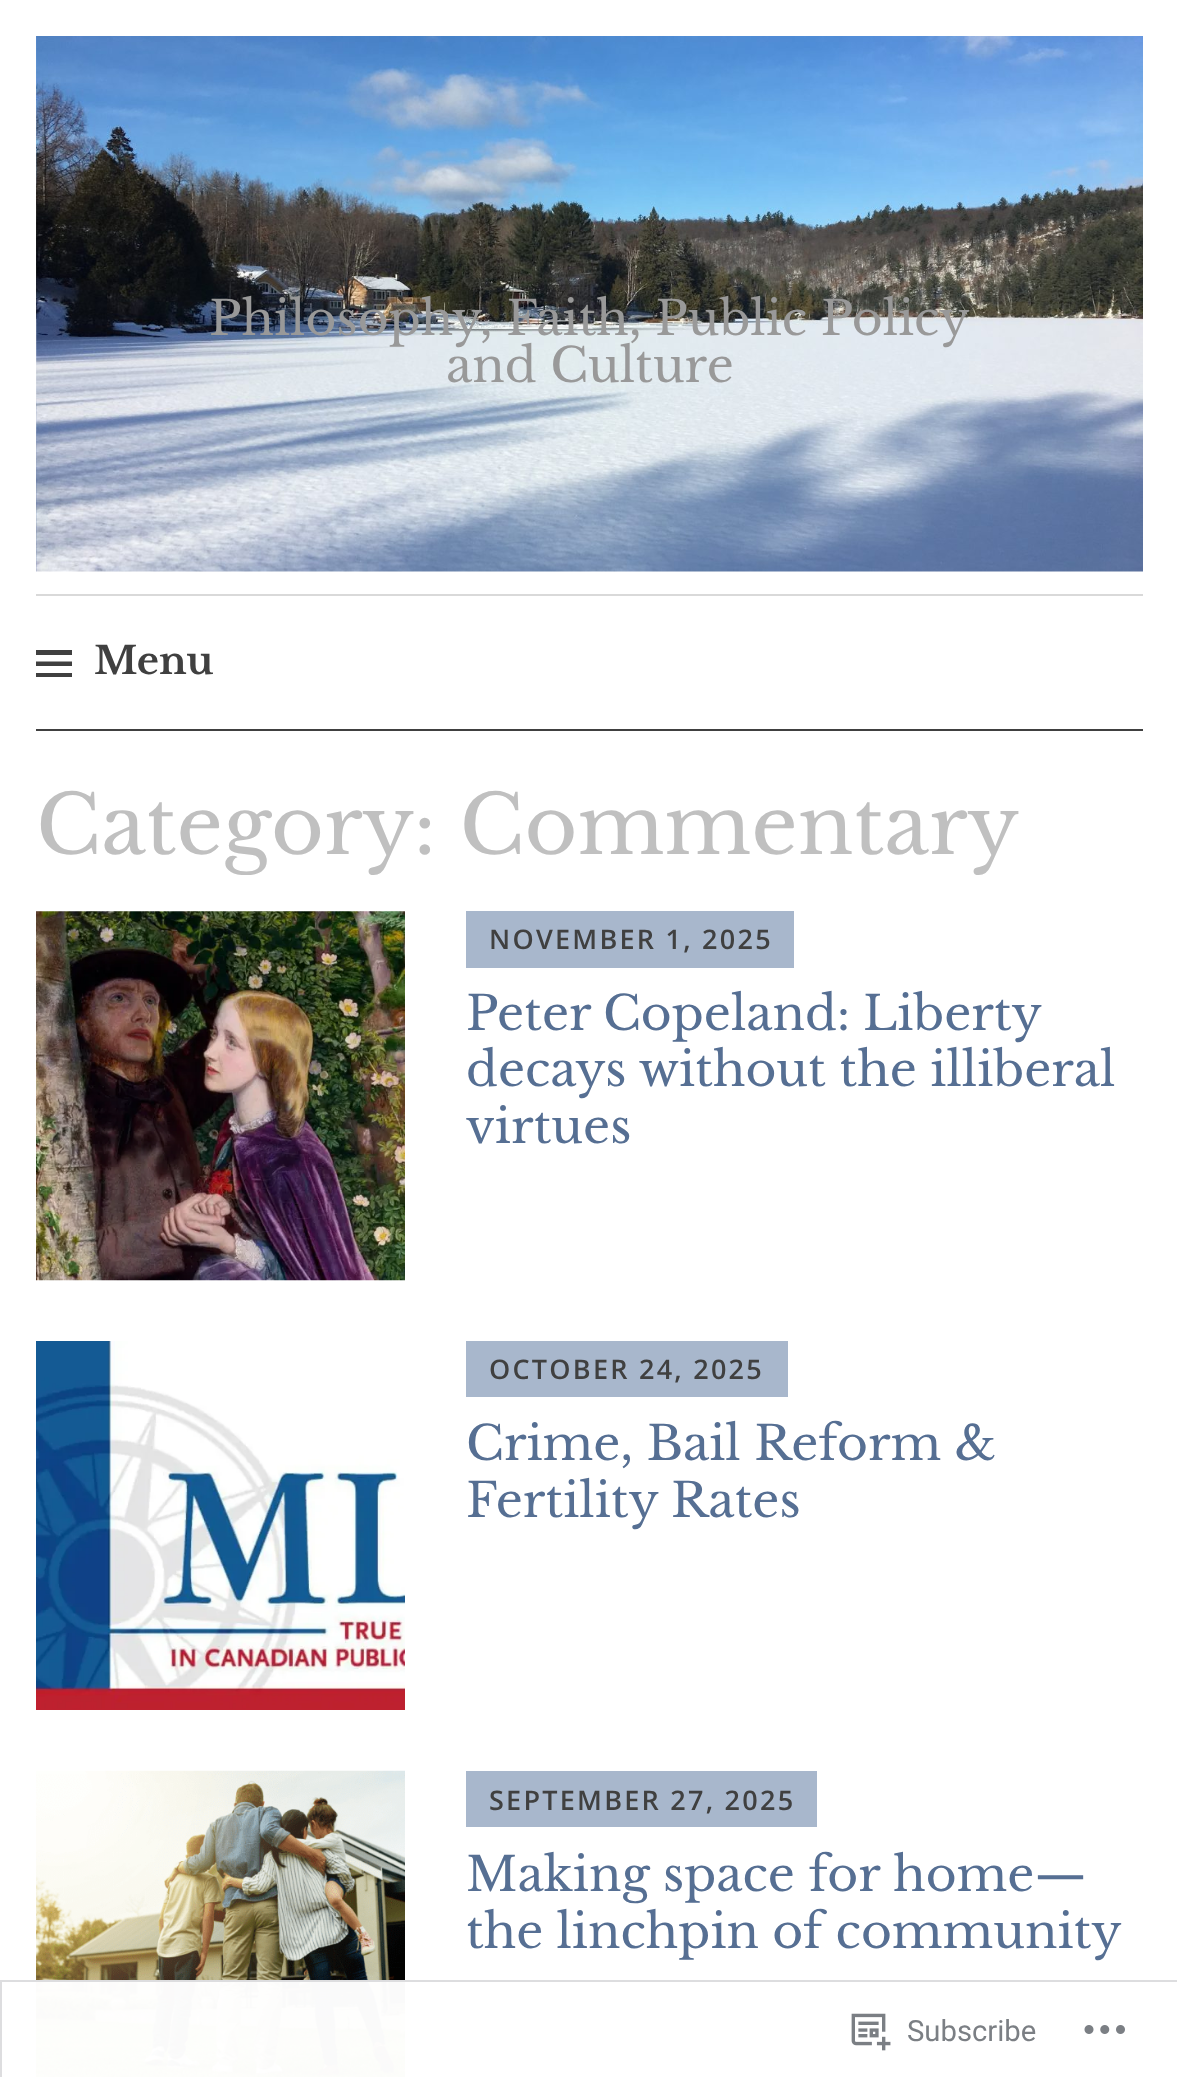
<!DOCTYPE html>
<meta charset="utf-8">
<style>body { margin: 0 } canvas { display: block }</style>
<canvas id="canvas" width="1177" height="2077"></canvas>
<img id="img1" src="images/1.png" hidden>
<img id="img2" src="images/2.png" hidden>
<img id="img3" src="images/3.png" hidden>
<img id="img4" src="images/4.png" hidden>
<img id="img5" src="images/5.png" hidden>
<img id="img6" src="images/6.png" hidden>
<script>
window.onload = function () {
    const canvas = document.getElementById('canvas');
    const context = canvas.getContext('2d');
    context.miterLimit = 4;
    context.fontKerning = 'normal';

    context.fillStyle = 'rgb(255, 255, 255)';
    context.fillRect(0, 0, 1177, 2077);
    context.drawImage(document.getElementById('img1'), 36, 36, 1107, 536);
    context.fillStyle = 'rgb(217, 217, 217)';
    context.fillRect(36, 594, 1107, 2);
    context.fillStyle = 'rgb(64, 64, 64)';
    context.fillRect(36, 729, 1107, 2);
    context.beginPath();
    context.moveTo(36, 677);
    context.lineTo(36, 673);
    context.lineTo(72, 673);
    context.lineTo(72, 677);
    context.closePath();
    context.moveTo(36, 650);
    context.lineTo(72, 650);
    context.lineTo(72, 655);
    context.lineTo(36, 655);
    context.closePath();
    context.moveTo(36, 666);
    context.lineTo(36, 661.5);
    context.lineTo(72, 661.5);
    context.lineTo(72, 666);
    context.closePath();
    context.fill();
    context.drawImage(document.getElementById('img2'), 36, 911, 369, 370);
    context.fillStyle = 'rgb(168, 183, 204)';
    context.fillRect(466, 911, 328, 57);
    context.drawImage(document.getElementById('img3'), 36, 1341, 369, 369);
    context.fillRect(466, 1341, 322, 56);
    context.drawImage(document.getElementById('img4'), 36, 1770, 369, 307);
    context.fillRect(466, 1771, 351, 56);
    context.fillStyle = 'rgba(255, 255, 255, 0.98)';
    context.fillRect(36, 1980, 369, 97);
    context.strokeStyle = 'rgba(220, 220, 222, 0.98)';
    context.lineWidth = 2;
    context.strokeRect(1, 1981, 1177, 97);
    context.drawImage(document.getElementById('img5'), 851, 2013, 40, 38);
    context.drawImage(document.getElementById('img6'), 1084, 2025, 41, 9);
    context.font = '47.25px Libre Baskerville';
    context.fillStyle = 'rgb(153, 153, 153)';
    context.fillText('Philosophy, Faith, Public Policy', 209, 335);
    context.fillText('and Culture', 446, 382);
    context.font = 'bold 38px Libre Baskerville';
    context.fillStyle = 'rgb(64, 64, 64)';
    context.fillText('Menu', 94, 674);
    context.font = '81px Libre Baskerville';
    context.fillStyle = 'rgb(192, 192, 192)';
    context.fillText('Category: Commentary', 36, 854);
    context.letterSpacing = '2.25px';
    context.font = '600 27px Open Sans';
    context.fillStyle = 'rgb(64, 64, 64)';
    context.fillText('NOVEMBER 1, 2025', 489, 949);
    context.letterSpacing = '0px';
    context.wordSpacing = '-1px';
    context.font = '47.25px Libre Baskerville';
    context.fillStyle = 'rgb(86, 111, 147)';
    context.fillText('Peter Copeland: Liberty', 466, 1030);
    context.wordSpacing = '0px';
    context.fillText('decays without the illiberal', 466, 1086);
    context.fillText('virtues', 466, 1143);
    context.letterSpacing = '2.25px';
    context.font = '600 27px Open Sans';
    context.fillStyle = 'rgb(64, 64, 64)';
    context.fillText('OCTOBER 24, 2025', 489, 1379);
    context.letterSpacing = '0px';
    context.font = '47.25px Libre Baskerville';
    context.fillStyle = 'rgb(86, 111, 147)';
    context.fillText('Crime, Bail Reform &', 466, 1460);
    context.fillText('Fertility Rates', 466, 1517);
    context.letterSpacing = '2.25px';
    context.font = '600 27px Open Sans';
    context.fillStyle = 'rgb(64, 64, 64)';
    context.fillText('SEPTEMBER 27, 2025', 489, 1810);
    context.letterSpacing = '0px';
    context.font = '47.25px Libre Baskerville';
    context.fillStyle = 'rgb(86, 111, 147)';
    context.fillText('Making space for home—', 466, 1891);
    context.wordSpacing = '-0.5px';
    context.fillText('the linchpin of community', 466, 1948);
    context.wordSpacing = '0px';
    context.font = '29.25px Roboto';
    context.fillStyle = 'rgb(123, 127, 132)';
    context.fillText('Subscribe', 907, 2041);
};
</script>
